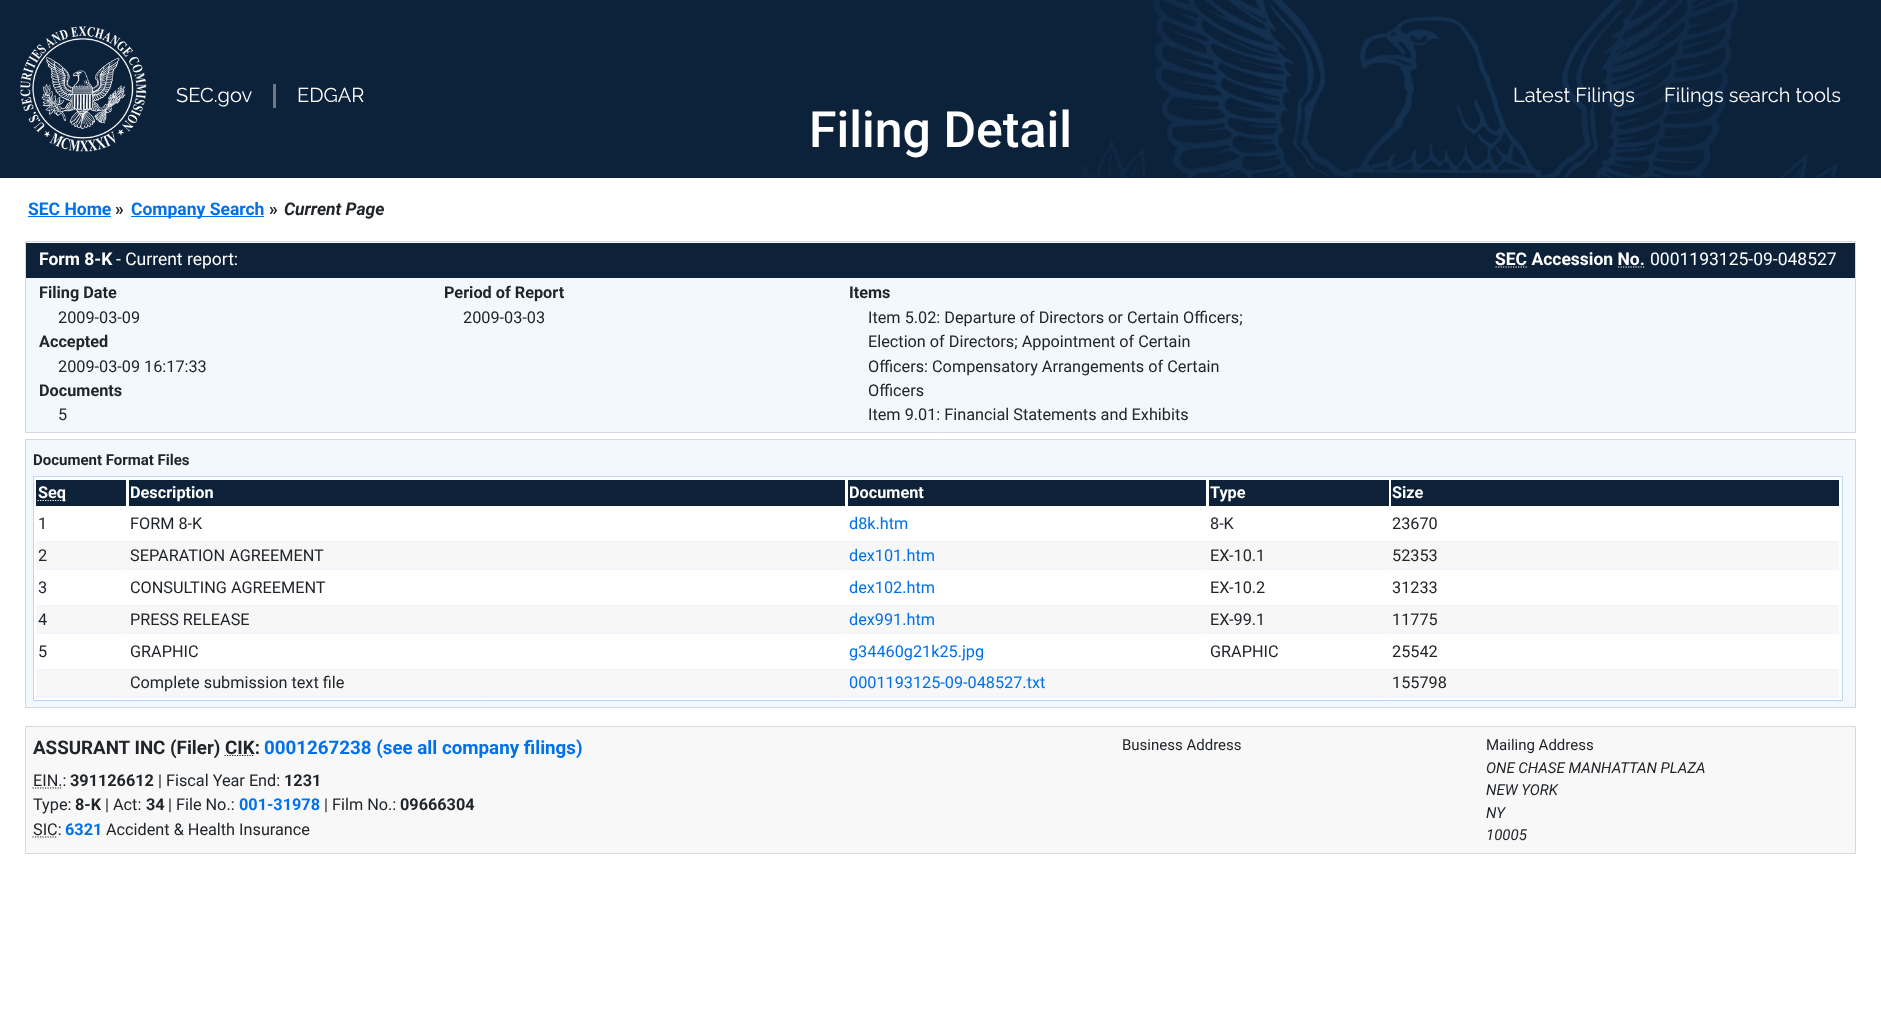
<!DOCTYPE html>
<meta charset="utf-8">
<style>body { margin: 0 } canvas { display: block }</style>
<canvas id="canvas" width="1881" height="1034"></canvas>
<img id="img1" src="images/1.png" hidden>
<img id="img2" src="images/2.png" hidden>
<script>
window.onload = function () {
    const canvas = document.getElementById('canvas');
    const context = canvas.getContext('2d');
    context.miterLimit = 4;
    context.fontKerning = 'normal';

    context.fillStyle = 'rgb(255, 255, 255)';
    context.fillRect(0, 0, 1881, 1034);
    context.fillStyle = 'rgb(12, 33, 58)';
    context.fillRect(0, 0, 1881, 178);
    context.drawImage(document.getElementById('img1'), 1081, 0, 757, 178);
    context.drawImage(document.getElementById('img2'), 20, 26, 127, 126);
    context.fillStyle = 'rgb(112, 121, 130)';
    context.fillRect(273, 84, 3, 24);
    context.fillStyle = 'rgb(0, 113, 235)';
    context.fillRect(28, 216, 83, 1);
    context.fillRect(131, 216, 133, 1);
    context.fillStyle = 'rgb(243, 248, 255)';
    context.beginPath();
    context.rect(25.5, 241.5, 1830, 191);
    context.fill();
    context.strokeStyle = 'rgb(213, 217, 223)';
    context.stroke();
    context.fillStyle = 'rgb(13, 34, 57)';
    context.fillRect(26, 243, 1829, 35);
    context.beginPath();
    context.moveTo(1495.5, 267);
    context.lineTo(1527.5, 267);
    context.strokeStyle = 'rgb(255, 255, 255)';
    context.lineWidth = 1.2;
    context.setLineDash([1.25, 1.25]);
    context.stroke();
    context.beginPath();
    context.moveTo(1618, 267);
    context.lineTo(1645, 267);
    context.stroke();
    context.fillStyle = 'rgb(243, 248, 255)';
    context.beginPath();
    context.rect(25.5, 439.5, 1830, 268);
    context.fill();
    context.strokeStyle = 'rgb(213, 217, 223)';
    context.lineWidth = 1;
    context.setLineDash([]);
    context.stroke();
    context.fillStyle = 'rgb(255, 255, 255)';
    context.beginPath();
    context.rect(33.5, 476.5, 1809, 224);
    context.fill();
    context.strokeStyle = 'rgb(188, 214, 248)';
    context.stroke();
    context.fillStyle = 'rgb(13, 34, 57)';
    context.fillRect(36, 480, 90, 26);
    context.beginPath();
    context.moveTo(37.5, 500.5);
    context.lineTo(65.5, 500.5);
    context.strokeStyle = 'rgb(255, 255, 255)';
    context.lineWidth = 1.2;
    context.setLineDash([1.25, 1.25]);
    context.stroke();
    context.fillRect(129, 480, 716, 26);
    context.fillRect(848, 480, 358, 26);
    context.fillRect(1209, 480, 180, 26);
    context.fillRect(1391, 480, 448, 26);
    context.fillStyle = 'rgb(247, 247, 247)';
    context.fillRect(36, 541, 1803, 29);
    context.fillStyle = 'rgb(238, 244, 253)';
    context.fillRect(36, 541, 90, 1);
    context.fillRect(36, 569, 90, 1);
    context.fillRect(129, 541, 716, 1);
    context.fillRect(129, 569, 716, 1);
    context.fillRect(848, 541, 358, 1);
    context.fillRect(848, 569, 358, 1);
    context.fillRect(1209, 541, 180, 1);
    context.fillRect(1209, 569, 180, 1);
    context.fillRect(1391, 541, 448, 1);
    context.fillRect(1391, 569, 448, 1);
    context.fillStyle = 'rgb(247, 247, 247)';
    context.fillRect(36, 605, 1803, 29);
    context.fillStyle = 'rgb(238, 244, 253)';
    context.fillRect(36, 605, 90, 1);
    context.fillRect(36, 633, 90, 1);
    context.fillRect(129, 605, 716, 1);
    context.fillRect(129, 633, 716, 1);
    context.fillRect(848, 605, 358, 1);
    context.fillRect(848, 633, 358, 1);
    context.fillRect(1209, 605, 180, 1);
    context.fillRect(1209, 633, 180, 1);
    context.fillRect(1391, 605, 448, 1);
    context.fillRect(1391, 633, 448, 1);
    context.fillStyle = 'rgb(247, 247, 247)';
    context.fillRect(36, 669, 1803, 29);
    context.fillStyle = 'rgb(238, 244, 253)';
    context.fillRect(36, 669, 90, 1);
    context.fillRect(36, 696, 90, 1);
    context.fillRect(129, 669, 716, 1);
    context.fillRect(129, 696, 716, 1);
    context.fillRect(848, 669, 358, 1);
    context.fillRect(848, 696, 358, 1);
    context.fillRect(1209, 669, 180, 1);
    context.fillRect(1209, 696, 180, 1);
    context.fillRect(1391, 669, 448, 1);
    context.fillRect(1391, 696, 448, 1);
    context.fillStyle = 'rgb(248, 248, 248)';
    context.beginPath();
    context.rect(25.5, 726.5, 1830, 127);
    context.fill();
    context.strokeStyle = 'rgb(217, 217, 217)';
    context.lineWidth = 1;
    context.setLineDash([]);
    context.stroke();
    context.beginPath();
    context.moveTo(224.5, 755.5);
    context.lineTo(254.5, 755.5);
    context.strokeStyle = 'rgb(33, 37, 41)';
    context.lineWidth = 1.2;
    context.setLineDash([1.25, 1.25]);
    context.stroke();
    context.beginPath();
    context.moveTo(32.5, 788);
    context.lineTo(62, 788);
    context.stroke();
    context.beginPath();
    context.moveTo(32.5, 837);
    context.lineTo(57, 837);
    context.stroke();
    context.font = '20px Raleway';
    context.fillStyle = 'rgb(255, 255, 255)';
    context.fillText('SEC.gov', 176, 102);
    context.fillText('EDGAR', 297, 102);
    context.fillText('Latest Filings', 1513, 102);
    context.fillText('Filings search tools', 1664, 102);
    context.font = '500 50px Roboto';
    context.fillText('Filing Detail', 809, 147);
    context.font = 'bold 17.5px Roboto';
    context.fillStyle = 'rgb(0, 113, 235)';
    context.fillText('SEC Home', 28, 215);
    context.fillStyle = 'rgb(33, 37, 41)';
    context.fillText('»', 115, 215);
    context.fillStyle = 'rgb(0, 113, 235)';
    context.fillText('Company Search', 131, 215);
    context.fillStyle = 'rgb(33, 37, 41)';
    context.fillText('»', 269, 215);
    context.font = 'italic bold 17.5px Roboto';
    context.fillText('Current Page', 284, 215);
    context.font = 'bold 17.5px Roboto';
    context.fillStyle = 'rgb(255, 255, 255)';
    context.fillText('Form 8-K', 39, 265);
    context.font = '17.5px Roboto';
    context.fillText('- Current report:', 116, 265);
    context.font = 'bold 17.5px Roboto';
    context.fillText('SEC Accession No.', 1495, 265);
    context.font = '17.5px Roboto';
    context.fillText('0001193125-09-048527', 1650, 265);
    context.font = 'bold 16.25px Roboto';
    context.fillStyle = 'rgb(33, 37, 41)';
    context.fillText('Filing Date', 39, 298);
    context.font = '16.25px Roboto';
    context.fillText('2009-03-09', 58, 323);
    context.font = 'bold 16.25px Roboto';
    context.fillText('Accepted', 39, 347);
    context.font = '16.25px Roboto';
    context.fillText('2009-03-09 16:17:33', 58, 372);
    context.font = 'bold 16.25px Roboto';
    context.fillText('Documents', 39, 396);
    context.font = '16.25px Roboto';
    context.fillText('5', 58, 420);
    context.font = 'bold 16.25px Roboto';
    context.fillText('Period of Report', 444, 298);
    context.font = '16.25px Roboto';
    context.fillText('2009-03-03', 463, 323);
    context.font = 'bold 16.25px Roboto';
    context.fillText('Items', 849, 298);
    context.font = '16.25px Roboto';
    context.fillText('Item 5.02: Departure of Directors or Certain Officers;', 868, 323);
    context.fillText('Election of Directors; Appointment of Certain', 868, 347);
    context.fillText('Officers: Compensatory Arrangements of Certain', 868, 372);
    context.fillText('Officers', 868, 396);
    context.fillText('Item 9.01: Financial Statements and Exhibits', 868, 420);
    context.font = 'bold 15px Roboto';
    context.fillText('Document Format Files', 33, 465);
    context.font = 'bold 16.25px Roboto';
    context.fillStyle = 'rgb(255, 255, 255)';
    context.fillText('Seq', 38, 498);
    context.fillText('Description', 130, 498);
    context.fillText('Document', 849, 498);
    context.fillText('Type', 1210, 498);
    context.fillText('Size', 1392, 498);
    context.font = '16.25px Roboto';
    context.fillStyle = 'rgb(33, 37, 41)';
    context.fillText('1', 38, 529);
    context.fillText('FORM 8-K', 130, 529);
    context.fillStyle = 'rgb(0, 113, 235)';
    context.fillText('d8k.htm', 849, 529);
    context.fillStyle = 'rgb(33, 37, 41)';
    context.fillText('8-K', 1210, 529);
    context.fillText('23670', 1392, 529);
    context.fillText('2', 38, 561);
    context.fillText('SEPARATION AGREEMENT', 130, 561);
    context.fillStyle = 'rgb(0, 113, 235)';
    context.fillText('dex101.htm', 849, 561);
    context.fillStyle = 'rgb(33, 37, 41)';
    context.fillText('EX-10.1', 1210, 561);
    context.fillText('52353', 1392, 561);
    context.fillText('3', 38, 593);
    context.fillText('CONSULTING AGREEMENT', 130, 593);
    context.fillStyle = 'rgb(0, 113, 235)';
    context.fillText('dex102.htm', 849, 593);
    context.fillStyle = 'rgb(33, 37, 41)';
    context.fillText('EX-10.2', 1210, 593);
    context.fillText('31233', 1392, 593);
    context.fillText('4', 38, 625);
    context.fillText('PRESS RELEASE', 130, 625);
    context.fillStyle = 'rgb(0, 113, 235)';
    context.fillText('dex991.htm', 849, 625);
    context.fillStyle = 'rgb(33, 37, 41)';
    context.fillText('EX-99.1', 1210, 625);
    context.fillText('11775', 1392, 625);
    context.fillText('5', 38, 657);
    context.fillText('GRAPHIC', 130, 657);
    context.fillStyle = 'rgb(0, 113, 235)';
    context.fillText('g34460g21k25.jpg', 849, 657);
    context.fillStyle = 'rgb(33, 37, 41)';
    context.fillText('GRAPHIC', 1210, 657);
    context.fillText('25542', 1392, 657);
    context.fillText('Complete submission text file', 130, 688);
    context.fillStyle = 'rgb(0, 113, 235)';
    context.fillText('0001193125-09-048527.txt', 849, 688);
    context.fillStyle = 'rgb(33, 37, 41)';
    context.fillText('155798', 1392, 688);
    context.font = 'bold 18.75px Roboto';
    context.fillText('ASSURANT INC (Filer)', 33, 754);
    context.fillText('CIK:', 225, 754);
    context.fillStyle = 'rgb(0, 113, 235)';
    context.fillText('0001267238 (see all company filings)', 264, 754);
    context.font = '16.25px Roboto';
    context.fillStyle = 'rgb(33, 37, 41)';
    context.fillText('EIN.:', 33, 786);
    context.font = 'bold 16.25px Roboto';
    context.fillText('391126612', 70, 786);
    context.font = '16.25px Roboto';
    context.fillText('| Fiscal Year End:', 158, 786);
    context.font = 'bold 16.25px Roboto';
    context.fillText('1231', 284, 786);
    context.font = '16.25px Roboto';
    context.fillText('Type:', 33, 810);
    context.font = 'bold 16.25px Roboto';
    context.fillText('8-K', 75, 810);
    context.font = '16.25px Roboto';
    context.fillText('| Act:', 105, 810);
    context.font = 'bold 16.25px Roboto';
    context.fillText('34', 146, 810);
    context.font = '16.25px Roboto';
    context.fillText('| File No.:', 168, 810);
    context.font = 'bold 16.25px Roboto';
    context.fillStyle = 'rgb(0, 113, 235)';
    context.fillText('001-31978', 239, 810);
    context.font = '16.25px Roboto';
    context.fillStyle = 'rgb(33, 37, 41)';
    context.fillText('| Film No.:', 324, 810);
    context.font = 'bold 16.25px Roboto';
    context.fillText('09666304', 400, 810);
    context.font = '16.25px Roboto';
    context.fillText('SIC:', 33, 835);
    context.font = 'bold 16.25px Roboto';
    context.fillStyle = 'rgb(0, 113, 235)';
    context.fillText('6321', 65, 835);
    context.font = '16.25px Roboto';
    context.fillStyle = 'rgb(33, 37, 41)';
    context.fillText('Accident & Health Insurance', 106, 835);
    context.font = '15px Roboto';
    context.fillText('Business Address', 1122, 750);
    context.fillText('Mailing Address', 1486, 750);
    context.font = 'italic 15px Roboto';
    context.fillText('ONE CHASE MANHATTAN PLAZA', 1486, 773);
    context.fillText('NEW YORK', 1486, 795);
    context.fillText('NY', 1486, 818);
    context.fillText('10005', 1486, 840);
};
</script>
